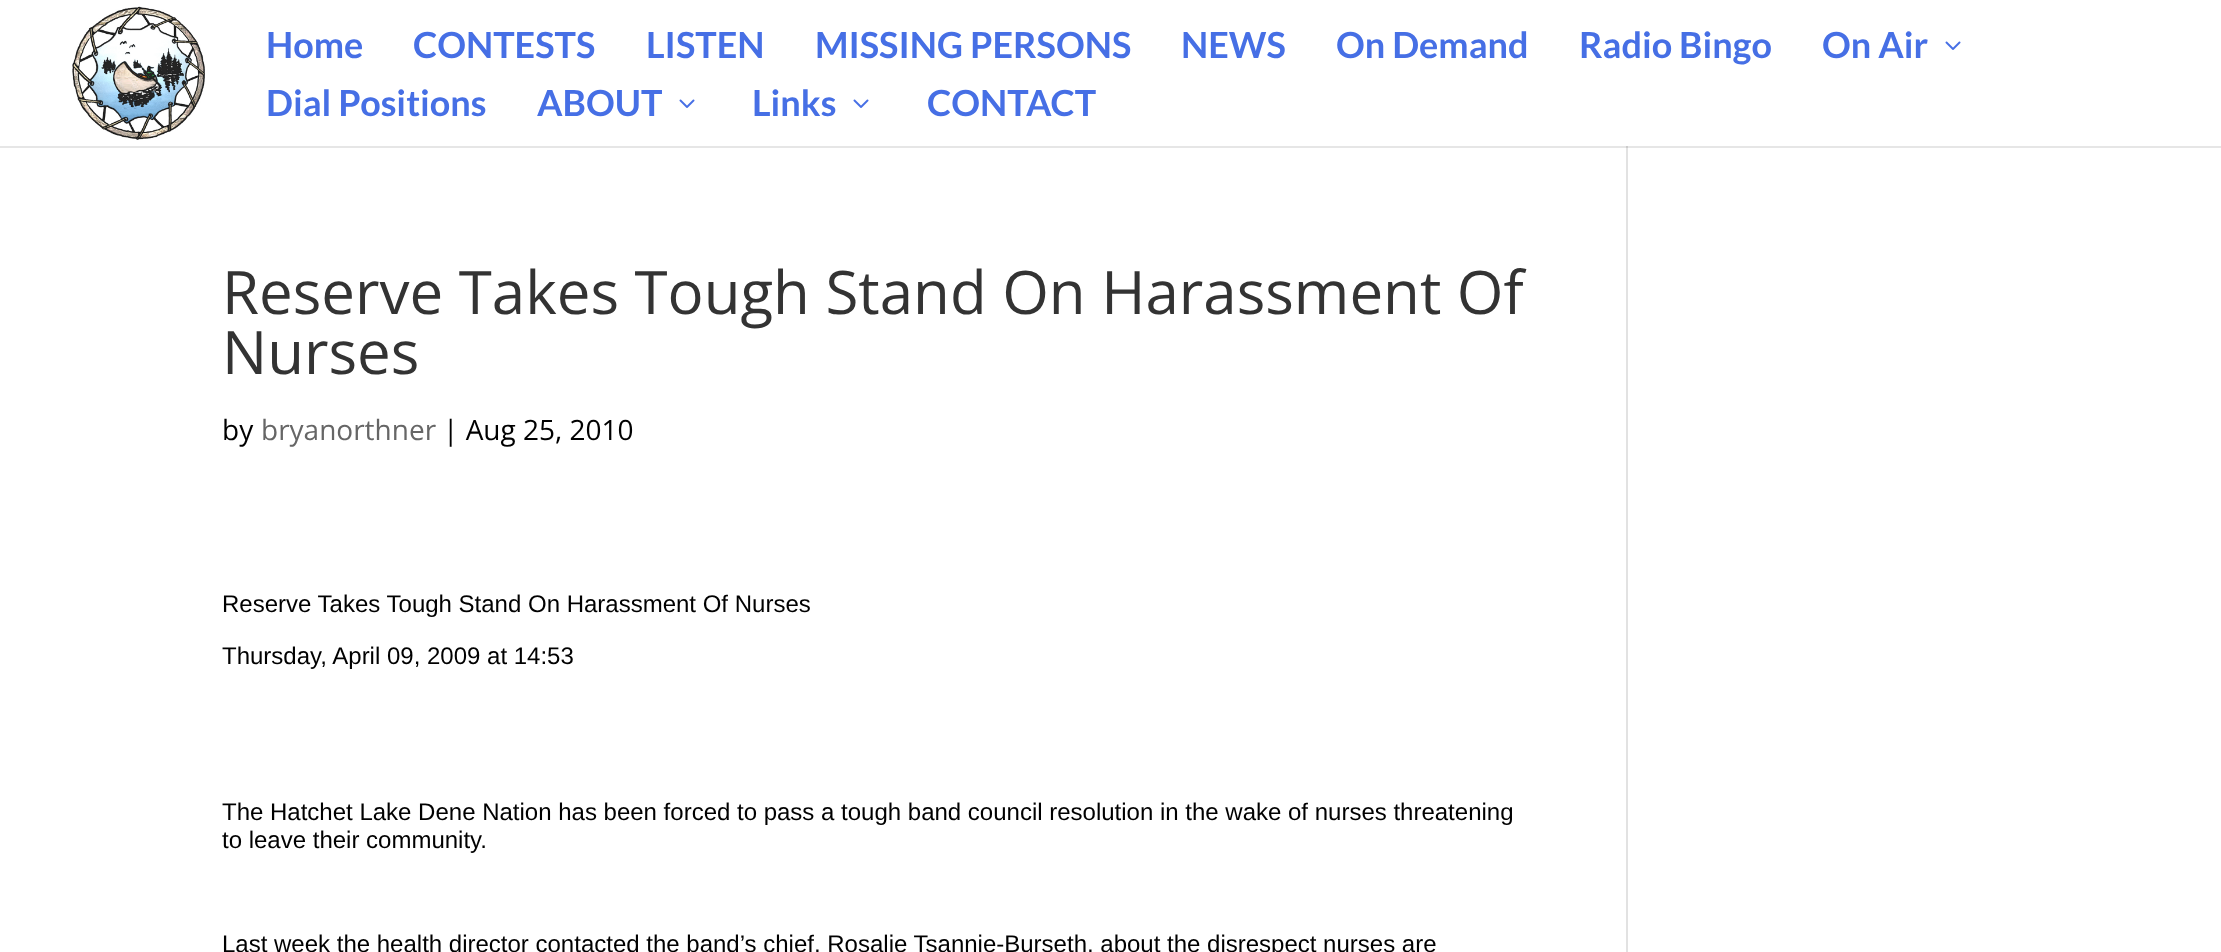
<!DOCTYPE html>
<meta charset="utf-8">
<style>body { margin: 0 } canvas { display: block }</style>
<canvas id="canvas" width="2221" height="952"></canvas>
<img id="img1" src="images/1.png" hidden>
<img id="img2" src="images/2.png" hidden>
<script>
window.onload = function () {
    const canvas = document.getElementById('canvas');
    const context = canvas.getContext('2d');
    context.miterLimit = 4;
    context.fontKerning = 'normal';

    context.fillStyle = 'rgb(255, 255, 255)';
    context.fillRect(0, 0, 2221, 952);
    context.drawImage(document.getElementById('img1'), 72, 6, 133, 134);
    context.drawImage(document.getElementById('img2'), 1945, 41, 16, 9);
    context.drawImage(document.getElementById('img2'), 679, 99, 16, 9);
    context.drawImage(document.getElementById('img2'), 853, 99, 16, 9);
    context.fillStyle = 'rgb(230, 230, 230)';
    context.fillRect(0, 146, 2221, 2);
    context.fillStyle = 'rgb(226, 226, 226)';
    context.fillRect(1626, 146, 2, 806);
    context.fillStyle = 'rgb(203, 203, 203)';
    context.fillRect(1626, 146, 2, 2);
    context.font = 'bold 36px Lato';
    context.fillStyle = 'rgb(70, 111, 229)';
    context.fillText('Home', 266, 58);
    context.fillText('CONTESTS', 413, 58);
    context.fillText('LISTEN', 646, 58);
    context.fillText('MISSING PERSONS', 815, 58);
    context.fillText('NEWS', 1181, 58);
    context.fillText('On Demand', 1336, 58);
    context.fillText('Radio Bingo', 1579, 58);
    context.fillText('On Air', 1822, 58);
    context.fillText('Dial Positions', 266, 116);
    context.fillText('ABOUT', 537, 116);
    context.fillText('Links', 752, 116);
    context.fillText('CONTACT', 927, 116);
    context.font = '60px Open Sans';
    context.fillStyle = 'rgb(51, 51, 51)';
    context.fillText('Reserve Takes Tough Stand On Harassment Of', 222, 314);
    context.fillText('Nurses', 222, 374);
    context.font = '28px Open Sans';
    context.fillStyle = 'rgb(0, 0, 0)';
    context.fillText('by', 222, 440);
    context.fillStyle = 'rgb(102, 102, 102)';
    context.fillText('bryanorthner', 261, 440);
    context.fillStyle = 'rgb(0, 0, 0)';
    context.fillText('| Aug 25, 2010', 443, 440);
    context.font = '24px Liberation Sans';
    context.fillText('Reserve Takes Tough Stand On Harassment Of Nurses', 222, 612);
    context.fillText('Thursday, April 09, 2009 at 14:53', 222, 664);
    context.fillText('The Hatchet Lake Dene Nation has been forced to pass a tough band council resolution in the wake of nurses threatening', 222, 820);
    context.fillText('to leave their community.', 222, 848);
    context.fillText('Last week the health director contacted the band’s chief, Rosalie Tsannie-Burseth, about the disrespect nurses are', 222, 952);
};
</script>
